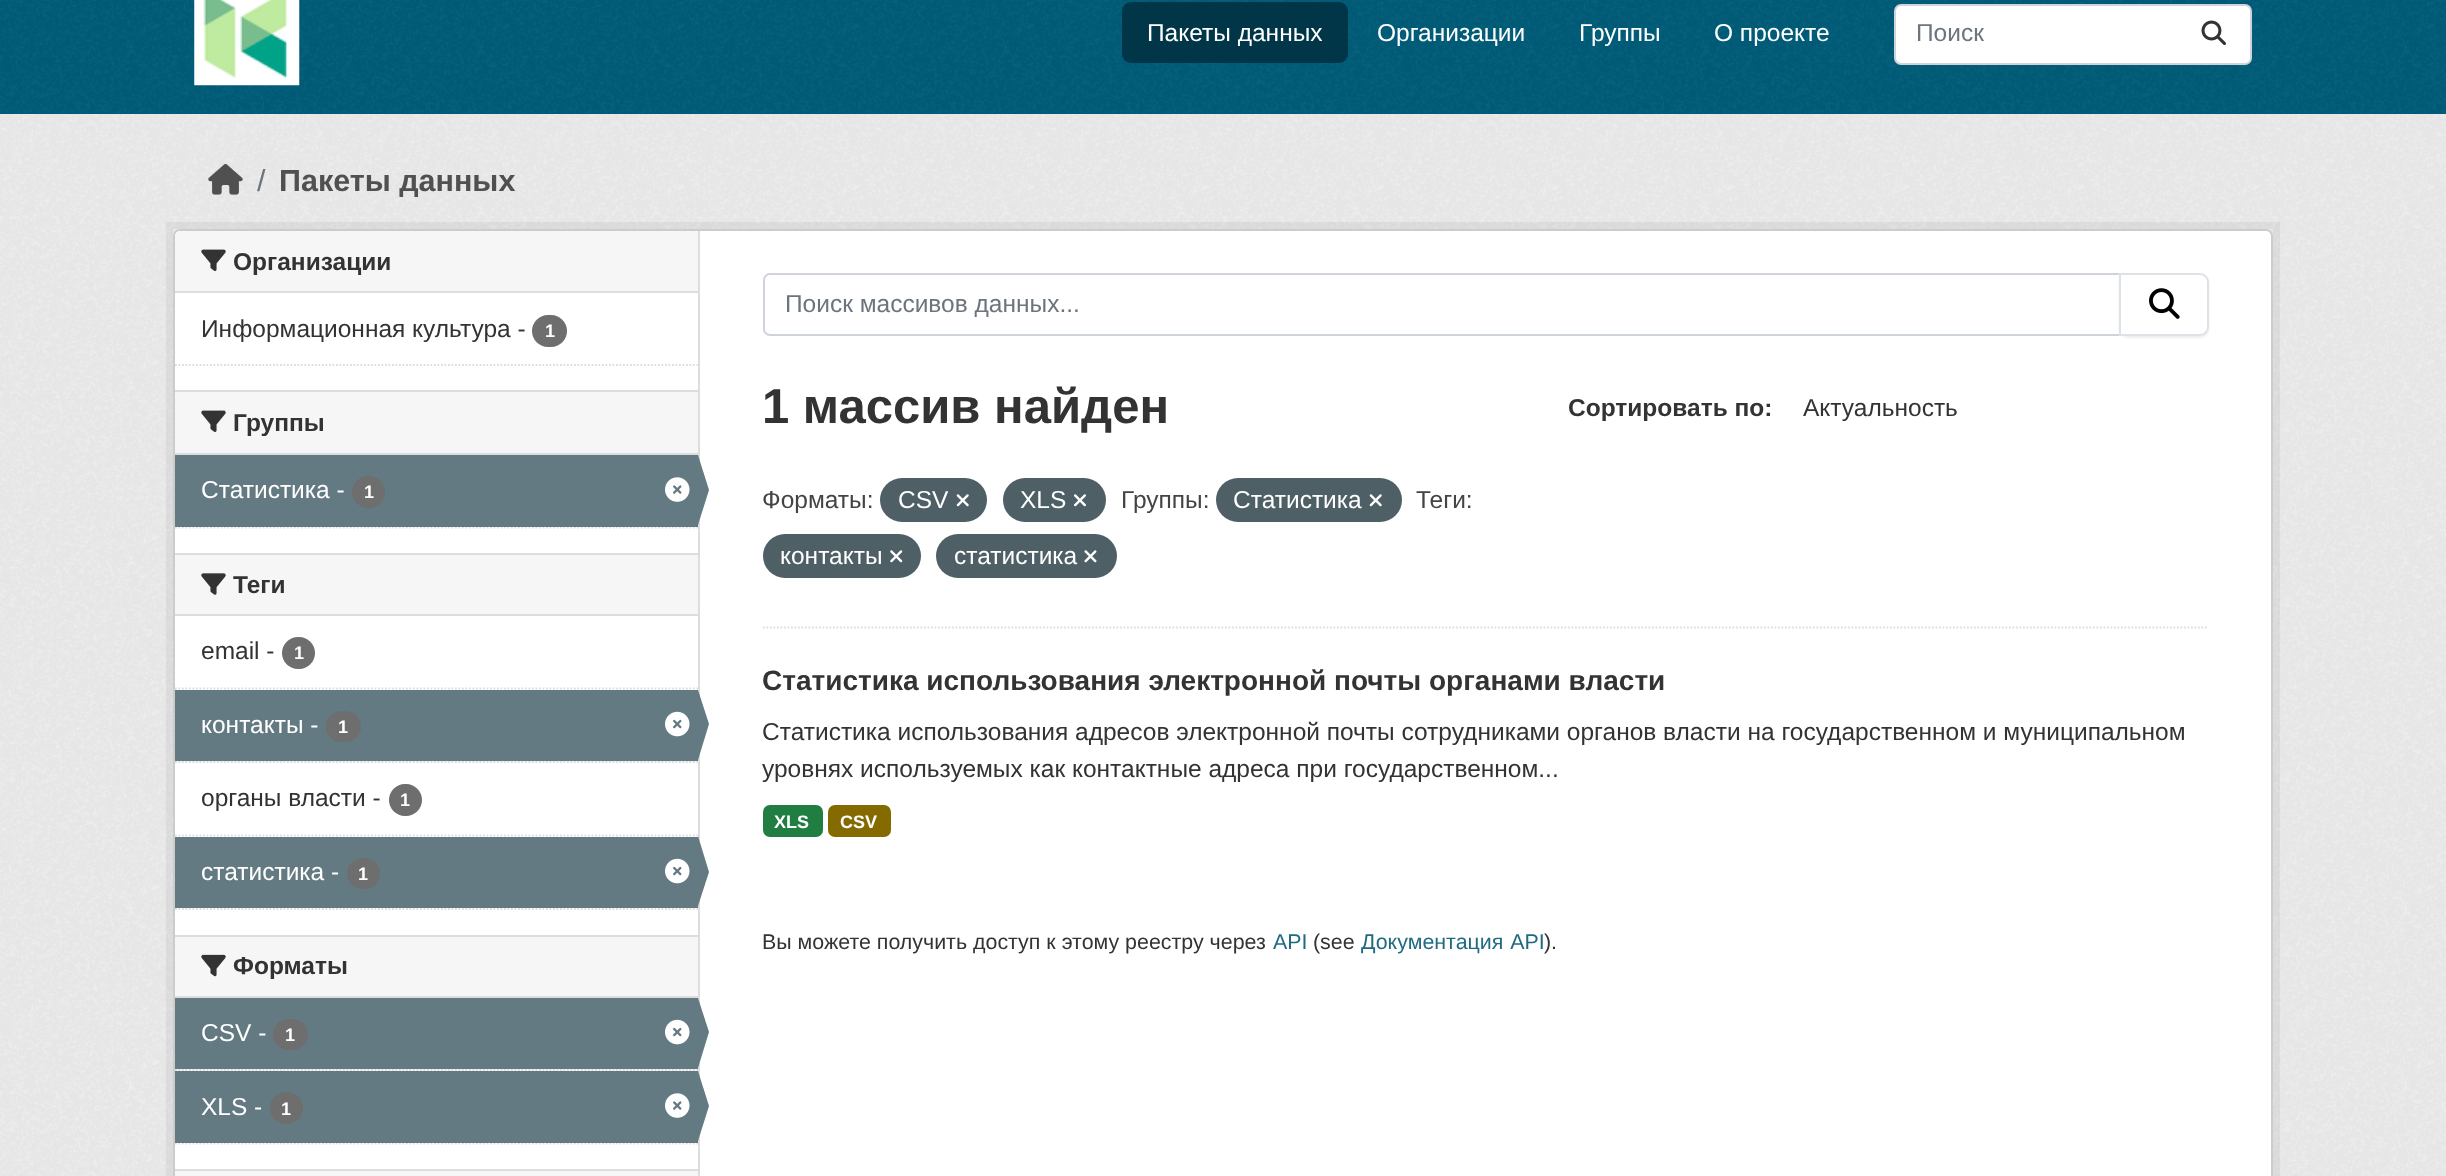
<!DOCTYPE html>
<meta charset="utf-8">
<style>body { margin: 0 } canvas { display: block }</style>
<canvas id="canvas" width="2446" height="1176"></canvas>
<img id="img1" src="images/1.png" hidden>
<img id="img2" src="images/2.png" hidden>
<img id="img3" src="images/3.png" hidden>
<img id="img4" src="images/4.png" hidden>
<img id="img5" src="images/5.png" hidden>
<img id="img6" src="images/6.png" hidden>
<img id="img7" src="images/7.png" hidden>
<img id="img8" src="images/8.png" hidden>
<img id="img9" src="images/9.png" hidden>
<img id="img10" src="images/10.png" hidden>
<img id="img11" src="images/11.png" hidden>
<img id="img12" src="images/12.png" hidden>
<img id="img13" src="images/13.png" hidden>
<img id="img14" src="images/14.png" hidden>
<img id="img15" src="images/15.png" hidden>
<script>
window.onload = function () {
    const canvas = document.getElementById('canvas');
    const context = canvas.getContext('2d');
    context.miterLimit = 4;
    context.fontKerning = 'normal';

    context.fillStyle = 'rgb(0, 93, 122)';
    context.fillRect(0, 0, 2446, 1176);
    context.drawImage(document.getElementById('img1'), 0, 0, 2446, 113);
    context.drawImage(document.getElementById('img2'), 194, 0, 106, 86);
    context.fillStyle = 'rgb(0, 54, 71)';
    context.beginPath();
    context.roundRect(1122, 2, 226, 61, 9);
    context.fill();
    context.fillStyle = 'rgb(255, 255, 255)';
    context.beginPath();
    context.roundRect(1895, 5, 356, 59, 6);
    context.fill();
    context.strokeStyle = 'rgb(206, 212, 218)';
    context.lineWidth = 2;
    context.stroke();
    context.drawImage(document.getElementById('img3'), 2201, 20, 25, 25);
    context.fillStyle = 'rgb(238, 238, 238)';
    context.fillRect(0, 114, 2446, 1062);
    context.drawImage(document.getElementById('img4'), 0, 114, 2446, 1062);
    context.drawImage(document.getElementById('img5'), 208, 164, 35, 31);
    context.strokeStyle = 'rgba(0, 0, 0, 0.05)';
    context.lineWidth = 7;
    context.strokeRect(169.5, 225.5, 2107, 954);
    context.fillStyle = 'rgb(255, 255, 255)';
    context.beginPath();
    context.roundRect(174, 230, 2098, 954, 6);
    context.fill();
    context.strokeStyle = 'rgb(204, 204, 204)';
    context.lineWidth = 2;
    context.stroke();
    context.fillStyle = 'rgb(246, 246, 246)';
    context.beginPath();
    context.roundRect(175, 231, 523, 61, [5, 0, 0, 0]);
    context.fill();
    context.fillStyle = 'rgb(221, 221, 221)';
    context.fillRect(175, 291, 523, 2);
    context.drawImage(document.getElementById('img6'), 201, 249, 25, 22);
    context.fillStyle = 'rgb(110, 110, 110)';
    context.beginPath();
    context.roundRect(532, 315, 35, 32, 16);
    context.fill();
    context.beginPath();
    context.moveTo(175, 365);
    context.lineTo(698, 365);
    context.strokeStyle = 'rgb(221, 221, 221)';
    context.lineWidth = 1.8;
    context.setLineDash([1.75, 1.75]);
    context.stroke();
    context.fillStyle = 'rgb(246, 246, 246)';
    context.fillRect(175, 392, 523, 61);
    context.fillStyle = 'rgb(221, 221, 221)';
    context.fillRect(175, 390, 523, 2);
    context.fillRect(175, 453, 523, 2);
    context.drawImage(document.getElementById('img6'), 201, 410, 25, 22);
    context.beginPath();
    context.moveTo(175, 527.5);
    context.lineTo(698, 527.5);
    context.stroke();
    context.fillStyle = 'rgb(100, 122, 130)';
    context.fillRect(175, 455, 523, 72);
    context.fillStyle = 'rgb(110, 110, 110)';
    context.beginPath();
    context.roundRect(352, 476, 33, 32, 16);
    context.fill();
    context.drawImage(document.getElementById('img7'), 665, 477, 25, 25);
    context.fillStyle = 'rgb(221, 221, 221)';
    context.fillRect(698, 231, 2, 945);
    context.fillStyle = 'rgb(100, 122, 130)';
    context.beginPath();
    context.moveTo(698, 525);
    context.lineTo(698, 455);
    context.lineTo(709, 490);
    context.closePath();
    context.fill();
    context.fillStyle = 'rgb(246, 246, 246)';
    context.fillRect(175, 555, 523, 59);
    context.fillStyle = 'rgb(221, 221, 221)';
    context.fillRect(175, 553, 523, 2);
    context.fillRect(175, 614, 523, 2);
    context.drawImage(document.getElementById('img8'), 201, 573, 25, 22);
    context.beginPath();
    context.moveTo(175, 688.5);
    context.lineTo(698, 688.5);
    context.stroke();
    context.fillStyle = 'rgb(110, 110, 110)';
    context.beginPath();
    context.roundRect(282, 637, 33, 32, 16);
    context.fill();
    context.fillStyle = 'rgb(246, 246, 246)';
    context.fillRect(175, 761, 523, 2);
    context.beginPath();
    context.moveTo(175, 762);
    context.lineTo(698, 762);
    context.stroke();
    context.fillStyle = 'rgb(100, 122, 130)';
    context.fillRect(175, 690, 523, 71);
    context.fillStyle = 'rgb(110, 110, 110)';
    context.beginPath();
    context.roundRect(326, 711, 35, 31, 15.5);
    context.fill();
    context.drawImage(document.getElementById('img9'), 665, 711, 25, 26);
    context.fillStyle = 'rgb(100, 122, 130)';
    context.beginPath();
    context.moveTo(698, 760);
    context.lineTo(698, 690);
    context.lineTo(709, 724);
    context.closePath();
    context.fill();
    context.beginPath();
    context.moveTo(175, 835.5);
    context.lineTo(698, 835.5);
    context.stroke();
    context.fillStyle = 'rgb(110, 110, 110)';
    context.beginPath();
    context.roundRect(389, 784, 33, 32, 16);
    context.fill();
    context.fillStyle = 'rgb(100, 122, 130)';
    context.fillRect(175, 837, 523, 71);
    context.fillStyle = 'rgb(110, 110, 110)';
    context.beginPath();
    context.roundRect(347, 858, 33, 31, 15.5);
    context.fill();
    context.drawImage(document.getElementById('img9'), 665, 858, 25, 26);
    context.fillStyle = 'rgb(100, 122, 130)';
    context.beginPath();
    context.moveTo(698, 906);
    context.lineTo(698, 836);
    context.lineTo(709, 872);
    context.closePath();
    context.fill();
    context.beginPath();
    context.moveTo(175, 909);
    context.lineTo(698, 909);
    context.stroke();
    context.fillStyle = 'rgb(246, 246, 246)';
    context.fillRect(175, 937, 523, 59);
    context.fillStyle = 'rgb(221, 221, 221)';
    context.fillRect(175, 935, 523, 2);
    context.fillRect(175, 996, 523, 2);
    context.drawImage(document.getElementById('img10'), 201, 954, 25, 23);
    context.fillStyle = 'rgb(246, 246, 246)';
    context.fillRect(175, 1069, 523, 2);
    context.beginPath();
    context.moveTo(175, 1070);
    context.lineTo(698, 1070);
    context.stroke();
    context.fillStyle = 'rgb(100, 122, 130)';
    context.fillRect(175, 998, 523, 71);
    context.fillStyle = 'rgb(110, 110, 110)';
    context.beginPath();
    context.roundRect(273, 1019, 35, 31, 15.5);
    context.fill();
    context.drawImage(document.getElementById('img9'), 665, 1019, 25, 26);
    context.fillStyle = 'rgb(100, 122, 130)';
    context.beginPath();
    context.moveTo(698, 1068);
    context.lineTo(698, 998);
    context.lineTo(709, 1032);
    context.closePath();
    context.fill();
    context.beginPath();
    context.moveTo(175, 1143.5);
    context.lineTo(698, 1143.5);
    context.stroke();
    context.fillRect(175, 1071, 523, 72);
    context.fillStyle = 'rgb(110, 110, 110)';
    context.beginPath();
    context.roundRect(270, 1092, 33, 32, 16);
    context.fill();
    context.drawImage(document.getElementById('img7'), 665, 1093, 25, 25);
    context.fillStyle = 'rgb(100, 122, 130)';
    context.beginPath();
    context.moveTo(698, 1141);
    context.lineTo(698, 1071);
    context.lineTo(709, 1106);
    context.closePath();
    context.fill();
    context.fillStyle = 'rgb(246, 246, 246)';
    context.fillRect(175, 1171, 523, 5);
    context.fillStyle = 'rgb(221, 221, 221)';
    context.fillRect(175, 1169, 523, 2);
    context.beginPath();
    context.moveTo(763, 627.5);
    context.lineTo(2208.5, 627.5);
    context.stroke();
    context.beginPath();
    context.roundRect(764, 274, 1356, 61, [6, 0, 0, 6]);
    context.strokeStyle = 'rgb(206, 212, 218)';
    context.lineWidth = 2;
    context.setLineDash([]);
    context.stroke();
    context.fillStyle = 'rgba(0, 0, 0, 0.07)';
    context.filter = 'blur(1px)';
    context.beginPath();
    context.roundRect(2119, 275, 90, 63, 9);
    context.fill();
    context.filter = 'none';
    context.fillStyle = 'rgb(255, 255, 255)';
    context.beginPath();
    context.roundRect(2120, 274, 88, 61, [0, 8, 8, 0]);
    context.fill();
    context.strokeStyle = 'rgb(222, 226, 230)';
    context.stroke();
    context.drawImage(document.getElementById('img11'), 2149, 288, 31, 31);
    context.fillStyle = 'rgb(78, 95, 101)';
    context.beginPath();
    context.roundRect(880, 478, 107, 44, 22);
    context.fill();
    context.drawImage(document.getElementById('img12'), 956, 494, 13, 13);
    context.beginPath();
    context.roundRect(1003, 478, 103, 44, 22);
    context.fill();
    context.drawImage(document.getElementById('img13'), 1074, 494, 12, 13);
    context.beginPath();
    context.roundRect(1216, 478, 186, 44, 22);
    context.fill();
    context.drawImage(document.getElementById('img12'), 1369, 494, 13, 13);
    context.beginPath();
    context.roundRect(763, 534, 158, 44, 22);
    context.fill();
    context.drawImage(document.getElementById('img14'), 890, 550, 13, 13);
    context.beginPath();
    context.roundRect(936, 534, 181, 44, 22);
    context.fill();
    context.drawImage(document.getElementById('img15'), 1084, 550, 13, 13);
    context.fillStyle = 'rgb(32, 126, 66)';
    context.beginPath();
    context.roundRect(763, 805, 60, 32, 7);
    context.fill();
    context.fillStyle = 'rgb(133, 106, 0)';
    context.beginPath();
    context.roundRect(828, 805, 63, 32, 7);
    context.fill();
    context.font = '24.5px Liberation Sans';
    context.fillStyle = 'rgb(255, 255, 255)';
    context.fillText('Пакеты данных', 1147, 41);
    context.fillText('Организации', 1377, 41);
    context.fillText('Группы', 1579, 41);
    context.fillText('О проекте', 1714, 41);
    context.fillStyle = 'rgb(108, 117, 125)';
    context.fillText('Поиск', 1916, 41);
    context.font = '30.5px Liberation Sans';
    context.fillText('/', 257, 191);
    context.font = 'bold 30.5px Liberation Sans';
    context.fillStyle = 'rgb(80, 80, 80)';
    context.fillText('Пакеты данных', 279, 191);
    context.font = 'bold 24.5px Liberation Sans';
    context.fillStyle = 'rgb(51, 51, 51)';
    context.fillText('Организации', 233, 270);
    context.font = '24.5px Liberation Sans';
    context.fillText('Информационная культура -', 201, 337);
    context.font = 'bold 18px Liberation Sans';
    context.fillStyle = 'rgb(255, 255, 255)';
    context.fillText('1', 545, 337);
    context.font = 'bold 24.5px Liberation Sans';
    context.fillStyle = 'rgb(51, 51, 51)';
    context.fillText('Группы', 233, 431);
    context.font = '24.5px Liberation Sans';
    context.fillStyle = 'rgb(255, 255, 255)';
    context.fillText('Статистика -', 201, 498);
    context.font = 'bold 18px Liberation Sans';
    context.fillText('1', 364, 498);
    context.font = 'bold 24.5px Liberation Sans';
    context.fillStyle = 'rgb(51, 51, 51)';
    context.fillText('Теги', 233, 593);
    context.font = '24.5px Liberation Sans';
    context.fillText('email -', 201, 659);
    context.font = 'bold 18px Liberation Sans';
    context.fillStyle = 'rgb(255, 255, 255)';
    context.fillText('1', 294, 659);
    context.font = '24.5px Liberation Sans';
    context.fillText('контакты -', 201, 733);
    context.font = 'bold 18px Liberation Sans';
    context.fillText('1', 338, 733);
    context.font = '24.5px Liberation Sans';
    context.fillStyle = 'rgb(51, 51, 51)';
    context.fillText('органы власти -', 201, 806);
    context.font = 'bold 18px Liberation Sans';
    context.fillStyle = 'rgb(255, 255, 255)';
    context.fillText('1', 400, 806);
    context.font = '24.5px Liberation Sans';
    context.fillText('статистика -', 201, 880);
    context.font = 'bold 18px Liberation Sans';
    context.fillText('1', 358, 880);
    context.font = 'bold 24.5px Liberation Sans';
    context.fillStyle = 'rgb(51, 51, 51)';
    context.fillText('Форматы', 233, 974);
    context.font = '24.5px Liberation Sans';
    context.fillStyle = 'rgb(255, 255, 255)';
    context.fillText('CSV -', 201, 1041);
    context.font = 'bold 18px Liberation Sans';
    context.fillText('1', 285, 1041);
    context.font = '24.5px Liberation Sans';
    context.fillText('XLS -', 201, 1115);
    context.font = 'bold 18px Liberation Sans';
    context.fillText('1', 281, 1115);
    context.font = '24.5px Liberation Sans';
    context.fillStyle = 'rgb(108, 117, 125)';
    context.fillText('Поиск массивов данных...', 785, 312);
    context.font = 'bold 49px Liberation Sans';
    context.fillStyle = 'rgb(51, 51, 51)';
    context.fillText('1 массив найден', 762, 423);
    context.font = 'bold 24.5px Liberation Sans';
    context.fillText('Сортировать по:', 1568, 416);
    context.font = '24.5px Liberation Sans';
    context.fillText('Актуальность', 1803, 416);
    context.fillStyle = 'rgb(68, 68, 68)';
    context.fillText('Форматы:', 762, 508);
    context.fillStyle = 'rgb(255, 255, 255)';
    context.fillText('CSV', 898, 508);
    context.fillText('XLS', 1020, 508);
    context.fillStyle = 'rgb(68, 68, 68)';
    context.fillText('Группы:', 1121, 508);
    context.fillStyle = 'rgb(255, 255, 255)';
    context.fillText('Статистика', 1233, 508);
    context.fillStyle = 'rgb(68, 68, 68)';
    context.fillText('Теги:', 1416, 508);
    context.fillStyle = 'rgb(255, 255, 255)';
    context.fillText('контакты', 780, 564);
    context.fillText('статистика', 954, 564);
    context.font = 'bold 28px Liberation Sans';
    context.fillStyle = 'rgb(51, 51, 51)';
    context.fillText('Статистика использования электронной почты органами власти', 762, 690);
    context.font = '24.5px Liberation Sans';
    context.fillText('Статистика использования адресов электронной почты сотрудниками органов власти на государственном и муниципальном', 762, 740);
    context.fillText('уровнях используемых как контактные адреса при государственном...', 762, 777);
    context.font = 'bold 18px Liberation Sans';
    context.fillStyle = 'rgb(255, 255, 255)';
    context.fillText('XLS', 774, 828);
    context.fillText('CSV', 840, 828);
    context.font = '21.4px Liberation Sans';
    context.fillStyle = 'rgb(51, 51, 51)';
    context.fillText('Вы можете получить доступ к этому реестру через', 762, 949);
    context.fillStyle = 'rgb(32, 107, 130)';
    context.fillText('API', 1273, 949);
    context.fillStyle = 'rgb(51, 51, 51)';
    context.fillText('(see', 1313, 949);
    context.wordSpacing = '1px';
    context.fillStyle = 'rgb(32, 107, 130)';
    context.fillText('Документация API', 1361, 949);
    context.wordSpacing = '0px';
    context.fillStyle = 'rgb(51, 51, 51)';
    context.fillText(').', 1544, 949);
};
</script>
